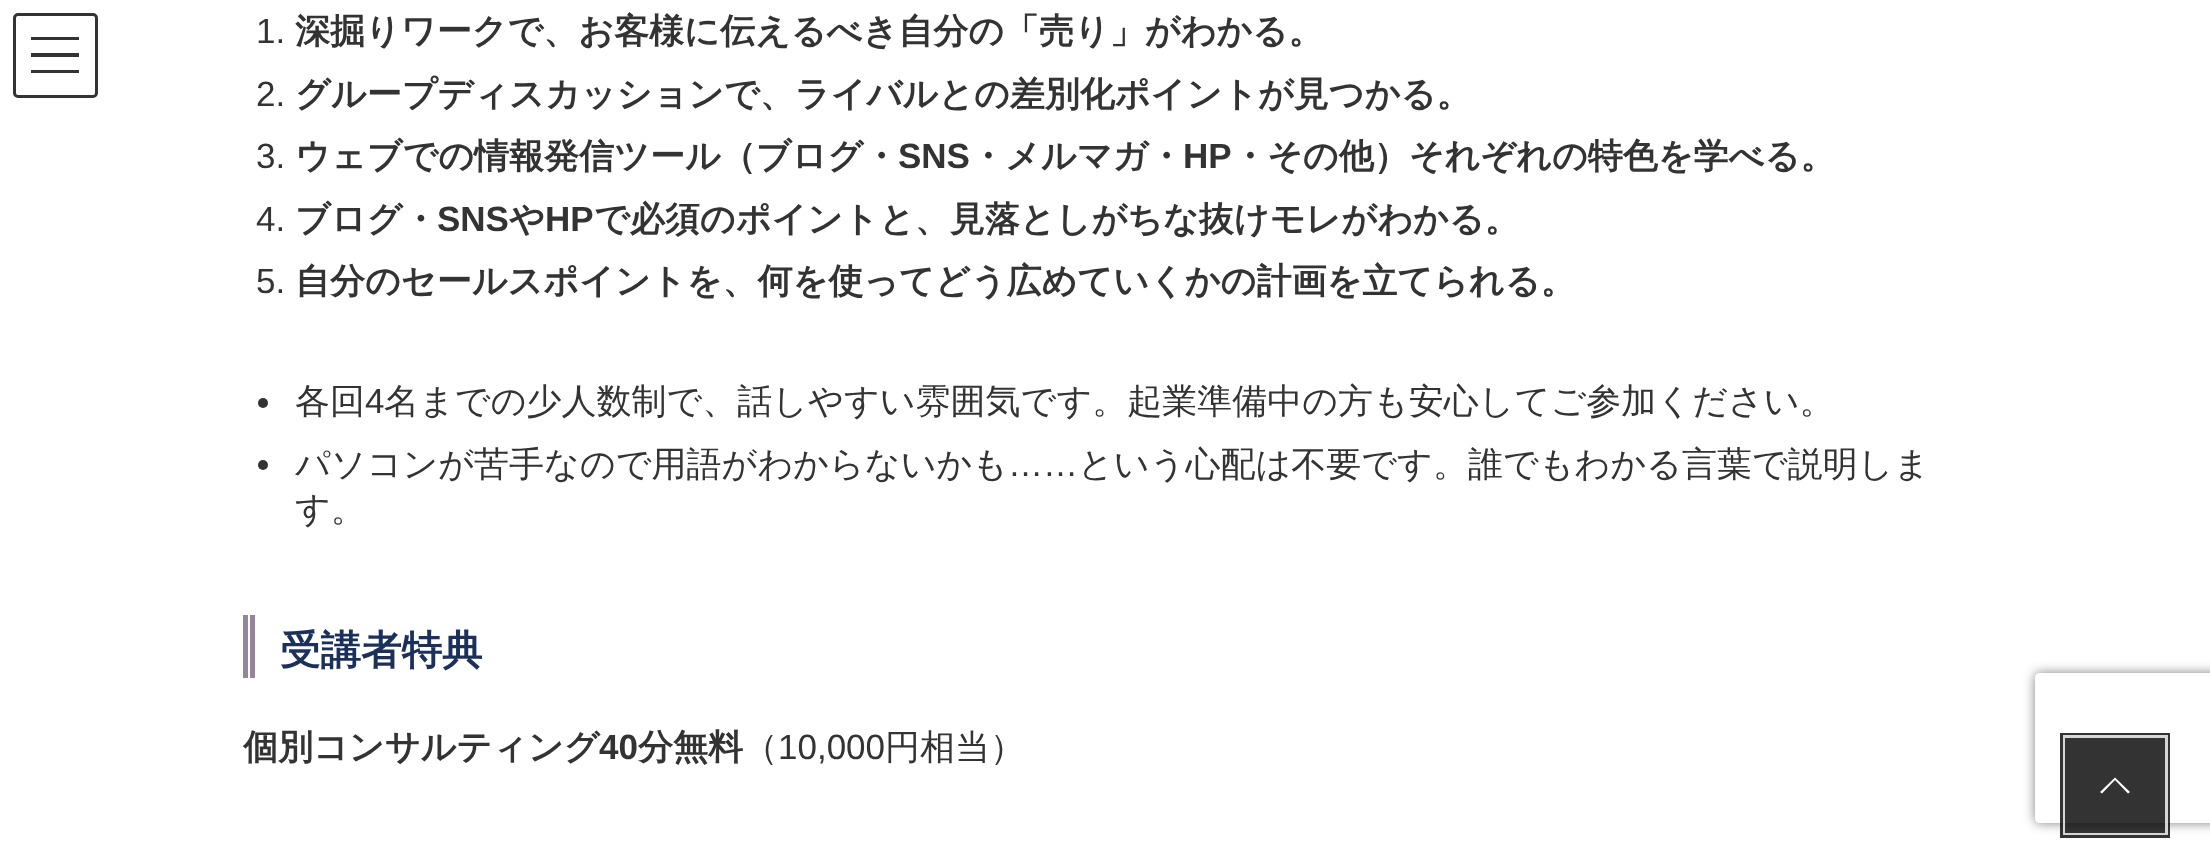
<!DOCTYPE html>
<meta charset="utf-8">
<style>body { margin: 0 } canvas { display: block }</style>
<canvas id="canvas" width="2210" height="857"></canvas>
<script>
window.onload = function () {
    const canvas = document.getElementById('canvas');
    const context = canvas.getContext('2d');
    context.miterLimit = 4;
    context.fontKerning = 'normal';

    context.fillStyle = 'rgb(255, 255, 255)';
    context.fillRect(0, 0, 2210, 857);
    context.fillStyle = 'rgb(51, 51, 51)';
    context.fillRect(31, 37, 48, 3);
    context.fillRect(31, 53, 48, 4);
    context.fillRect(31, 70, 48, 3);
    context.beginPath();
    context.roundRect(14.5, 14.5, 82, 82, 3.5);
    context.strokeStyle = 'rgb(51, 51, 51)';
    context.lineWidth = 3;
    context.stroke();
    context.beginPath();
    context.arc(263, 403, 5, 0, 2 * Math.PI);
    context.fill();
    context.beginPath();
    context.arc(263, 465, 5, 0, 2 * Math.PI);
    context.fill();
    context.fillStyle = 'rgb(149, 133, 156)';
    context.fillRect(243, 615, 5, 63);
    context.fillRect(250, 615, 5, 63);
    context.save();
    context.beginPath();
    context.moveTo(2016, 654);
    context.lineTo(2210, 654);
    context.lineTo(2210, 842);
    context.lineTo(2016, 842);
    context.closePath();
    context.moveTo(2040, 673);
    context.lineTo(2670, 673);
    context.bezierCurveTo(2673, 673, 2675, 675, 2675, 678);
    context.lineTo(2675, 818);
    context.bezierCurveTo(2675, 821, 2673, 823, 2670, 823);
    context.lineTo(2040, 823);
    context.bezierCurveTo(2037, 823, 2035, 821, 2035, 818);
    context.lineTo(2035, 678);
    context.bezierCurveTo(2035, 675, 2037, 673, 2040, 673);
    context.closePath();
    context.clip('evenodd');
    context.fillStyle = 'rgb(128, 128, 128)';
    context.filter = 'blur(6px)';
    context.beginPath();
    context.roundRect(2035, 673, 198, 150, 5);
    context.fill();
    context.filter = 'none';
    context.restore();
    context.strokeStyle = 'rgba(0, 0, 0, 0.8)';
    context.lineWidth = 5;
    context.strokeRect(2062.5, 735.5, 105, 100);
    context.strokeStyle = 'rgba(255, 255, 255, 0.8)';
    context.lineWidth = 3;
    context.strokeRect(2064.5, 736.5, 102, 97);
    context.fillStyle = 'rgba(0, 0, 0, 0.8)';
    context.fillRect(2065, 738, 100, 95);
    context.fillStyle = 'rgb(255, 255, 255)';
    context.beginPath();
    context.moveTo(2130, 792);
    context.lineTo(2128, 793.5);
    context.lineTo(2115, 780);
    context.lineTo(2102, 793.5);
    context.lineTo(2100, 792);
    context.lineTo(2115, 777.5);
    context.closePath();
    context.fill();
    context.font = '35px Liberation Sans';
    context.fillStyle = 'rgb(51, 51, 51)';
    context.fillText('1.', 256, 43);
    context.font = 'bold 35px WenQuanYi Zen Hei';
    context.fillText('深掘りワークで、お客様に伝えるべき自分の「売り」がわかる。', 295, 43);
    context.font = '35px Liberation Sans';
    context.fillText('2.', 256, 106);
    context.font = 'bold 35px WenQuanYi Zen Hei';
    context.fillText('グループディスカッションで、ライバルとの差別化ポイントが見つかる。', 295, 106);
    context.font = '35px Liberation Sans';
    context.fillText('3.', 256, 168);
    context.font = 'bold 35px WenQuanYi Zen Hei';
    context.fillText('ウェブでの情報発信ツール（ブログ・', 295, 168);
    context.font = 'bold 35px Liberation Sans';
    context.fillText('SNS', 898, 168);
    context.font = 'bold 35px WenQuanYi Zen Hei';
    context.fillText('・メルマガ・', 970, 168);
    context.font = 'bold 35px Liberation Sans';
    context.fillText('HP', 1183, 168);
    context.font = 'bold 35px WenQuanYi Zen Hei';
    context.fillText('・その他）それぞれの特色を学べる。', 1232, 168);
    context.font = '35px Liberation Sans';
    context.fillText('4.', 256, 231);
    context.font = 'bold 35px WenQuanYi Zen Hei';
    context.fillText('ブログ・', 295, 231);
    context.font = 'bold 35px Liberation Sans';
    context.fillText('SNS', 437, 231);
    context.font = 'bold 35px WenQuanYi Zen Hei';
    context.fillText('や', 509, 231);
    context.font = 'bold 35px Liberation Sans';
    context.fillText('HP', 545, 231);
    context.font = 'bold 35px WenQuanYi Zen Hei';
    context.fillText('で必須のポイントと、見落としがちな抜けモレがわかる。', 594, 231);
    context.font = '35px Liberation Sans';
    context.fillText('5.', 256, 293);
    context.font = 'bold 35px WenQuanYi Zen Hei';
    context.fillText('自分のセールスポイントを、何を使ってどう広めていくかの計画を立てられる。', 295, 293);
    context.font = '500 35px WenQuanYi Zen Hei';
    context.fillText('各回', 295, 413);
    context.font = '35px Liberation Sans';
    context.fillText('4', 365, 413);
    context.font = '500 35px WenQuanYi Zen Hei';
    context.fillText('名までの少人数制で、話しやすい雰囲気です。起業準備中の方も安心してご参加ください。', 384, 413);
    context.fillText('パソコンが苦手なので用語がわからないかも', 295, 476);
    context.fillText('という心配は不要です。誰でもわかる言葉で説明しま', 1078, 476);
    context.font = '35px Liberation Sans';
    context.fillText('……', 1008, 476);
    context.font = '500 35px WenQuanYi Zen Hei';
    context.fillText('す。', 295, 521);
    context.font = 'bold 40.5px WenQuanYi Zen Hei';
    context.fillStyle = 'rgb(28, 48, 92)';
    context.fillText('受講者特典', 280, 664);
    context.font = 'bold 35px WenQuanYi Zen Hei';
    context.fillStyle = 'rgb(51, 51, 51)';
    context.fillText('個別コンサルティング', 243, 759);
    context.font = 'bold 35px Liberation Sans';
    context.fillText('40', 599, 759);
    context.font = 'bold 35px WenQuanYi Zen Hei';
    context.fillText('分無料', 638, 759);
    context.font = '500 35px WenQuanYi Zen Hei';
    context.fillText('（', 743, 759);
    context.font = '35px Liberation Sans';
    context.fillText('10,000', 778, 759);
    context.font = '500 35px WenQuanYi Zen Hei';
    context.fillText('円相当）', 885, 759);
};
</script>
